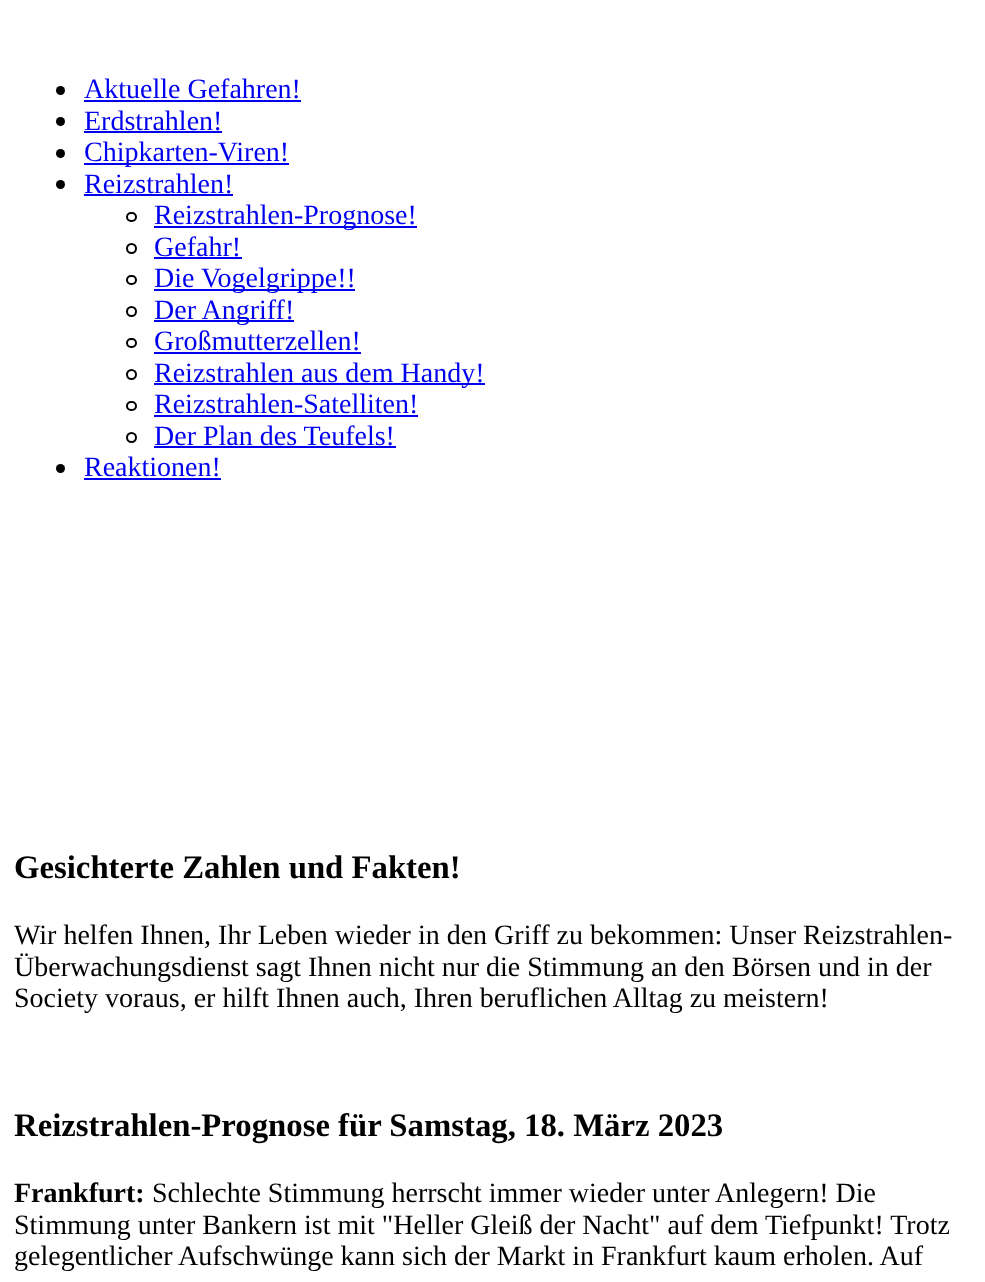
<!DOCTYPE html>
<meta charset="utf-8">
<style>body { margin: 0 } canvas { display: block }</style>
<canvas id="canvas" width="985" height="1282"></canvas>
<script>
window.onload = function () {
    const canvas = document.getElementById('canvas');
    const context = canvas.getContext('2d');
    context.miterLimit = 4;
    context.fontKerning = 'normal';

    context.fillStyle = 'rgb(255, 255, 255)';
    context.fillRect(0, 0, 985, 1282);
    context.fillStyle = 'rgb(0, 0, 0)';
    context.beginPath();
    context.arc(60.5, 90.5, 4.5, 0, 2 * Math.PI);
    context.fill();
    context.fillStyle = 'rgb(0, 0, 238)';
    context.fillRect(84, 100, 217, 2);
    context.fillStyle = 'rgb(0, 0, 0)';
    context.beginPath();
    context.arc(60.5, 121.5, 4.5, 0, 2 * Math.PI);
    context.fill();
    context.fillStyle = 'rgb(0, 0, 238)';
    context.fillRect(84, 131, 138, 2);
    context.fillStyle = 'rgb(0, 0, 0)';
    context.beginPath();
    context.arc(60.5, 153.5, 4.5, 0, 2 * Math.PI);
    context.fill();
    context.fillStyle = 'rgb(0, 0, 238)';
    context.fillRect(84, 163, 205, 2);
    context.fillStyle = 'rgb(0, 0, 0)';
    context.beginPath();
    context.arc(60.5, 184.5, 4.5, 0, 2 * Math.PI);
    context.fill();
    context.fillStyle = 'rgb(0, 0, 238)';
    context.fillRect(84, 194, 149, 2);
    context.beginPath();
    context.roundRect(127, 213, 9, 8, 4);
    context.strokeStyle = 'rgb(0, 0, 0)';
    context.lineWidth = 2;
    context.stroke();
    context.fillRect(154, 226, 263, 2);
    context.beginPath();
    context.arc(131.5, 248.5, 4.5, 0, 2 * Math.PI);
    context.stroke();
    context.fillRect(154, 257, 88, 2);
    context.beginPath();
    context.roundRect(127, 276, 9, 8, 4);
    context.stroke();
    context.fillRect(154, 289, 201, 2);
    context.beginPath();
    context.arc(131.5, 311.5, 4.5, 0, 2 * Math.PI);
    context.stroke();
    context.fillRect(154, 320, 140, 2);
    context.beginPath();
    context.roundRect(127, 339, 9, 8, 4);
    context.stroke();
    context.fillRect(154, 352, 207, 2);
    context.beginPath();
    context.arc(131.5, 374.5, 4.5, 0, 2 * Math.PI);
    context.stroke();
    context.fillRect(154, 383, 331, 2);
    context.beginPath();
    context.roundRect(127, 402, 9, 8, 4);
    context.stroke();
    context.fillRect(154, 415, 264, 2);
    context.beginPath();
    context.arc(131.5, 437.5, 4.5, 0, 2 * Math.PI);
    context.stroke();
    context.fillRect(154, 446, 242, 2);
    context.fillStyle = 'rgb(0, 0, 0)';
    context.beginPath();
    context.arc(60.5, 468.5, 4.5, 0, 2 * Math.PI);
    context.fill();
    context.fillStyle = 'rgb(0, 0, 238)';
    context.fillRect(84, 478, 137, 2);
    context.font = '28px Liberation Serif';
    context.fillText('Aktuelle Gefahren!', 84, 98);
    context.fillText('Erdstrahlen!', 84, 130);
    context.fillText('Chipkarten-Viren!', 84, 161);
    context.fillText('Reizstrahlen!', 84, 193);
    context.fillText('Reizstrahlen-Prognose!', 154, 224);
    context.fillText('Gefahr!', 154, 256);
    context.fillText('Die Vogelgrippe!!', 154, 287);
    context.fillText('Der Angriff!', 154, 319);
    context.fillText('Großmutterzellen!', 154, 350);
    context.fillText('Reizstrahlen aus dem Handy!', 154, 382);
    context.fillText('Reizstrahlen-Satelliten!', 154, 413);
    context.fillText('Der Plan des Teufels!', 154, 445);
    context.fillText('Reaktionen!', 84, 476);
    context.font = 'bold 32.75px Liberation Serif';
    context.fillStyle = 'rgb(0, 0, 0)';
    context.fillText('Gesichterte Zahlen und Fakten!', 14, 878);
    context.font = '28px Liberation Serif';
    context.fillText('Wir helfen Ihnen, Ihr Leben wieder in den Griff zu bekommen: Unser Reizstrahlen-', 14, 944);
    context.fillText('Überwachungsdienst sagt Ihnen nicht nur die Stimmung an den Börsen und in der', 14, 976);
    context.fillText('Society voraus, er hilft Ihnen auch, Ihren beruflichen Alltag zu meistern!', 14, 1007);
    context.font = 'bold 32.75px Liberation Serif';
    context.fillText('Reizstrahlen-Prognose für Samstag, 18. März 2023', 14, 1136);
    context.font = 'bold 28px Liberation Serif';
    context.fillText('Frankfurt:', 14, 1202);
    context.font = '28px Liberation Serif';
    context.fillText('Schlechte Stimmung herrscht immer wieder unter Anlegern! Die', 152, 1202);
    context.fillText('Stimmung unter Bankern ist mit "Heller Gleiß der Nacht" auf dem Tiefpunkt! Trotz', 14, 1234);
    context.fillText('gelegentlicher Aufschwünge kann sich der Markt in Frankfurt kaum erholen. Auf', 14, 1265);
};
</script>
